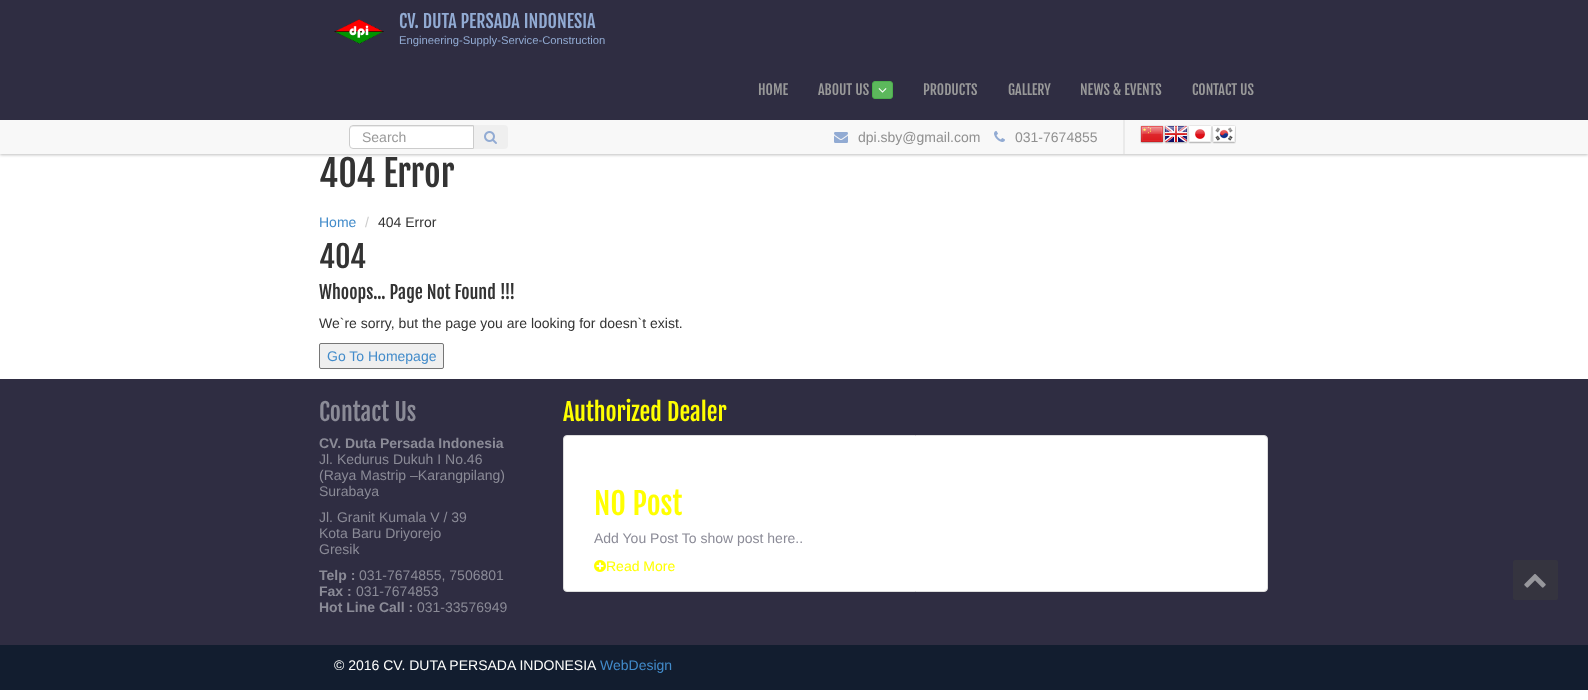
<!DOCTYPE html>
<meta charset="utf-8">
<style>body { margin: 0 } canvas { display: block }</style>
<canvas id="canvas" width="1588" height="700"></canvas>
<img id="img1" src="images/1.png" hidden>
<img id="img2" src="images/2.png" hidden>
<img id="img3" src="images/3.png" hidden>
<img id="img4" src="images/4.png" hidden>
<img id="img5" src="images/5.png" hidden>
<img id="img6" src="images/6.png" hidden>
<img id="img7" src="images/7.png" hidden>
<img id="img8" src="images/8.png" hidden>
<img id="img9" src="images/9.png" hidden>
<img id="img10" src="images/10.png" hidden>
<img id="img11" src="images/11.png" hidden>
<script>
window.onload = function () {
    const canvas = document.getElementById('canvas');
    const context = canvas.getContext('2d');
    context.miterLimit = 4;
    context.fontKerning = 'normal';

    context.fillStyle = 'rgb(255, 255, 255)';
    context.fillRect(0, 0, 1588, 700);
    context.fillStyle = 'rgba(0, 0, 0, 0.25)';
    context.filter = 'blur(1.5px)';
    context.beginPath();
    context.rect(0, 1, 1588, 154);
    context.fill();
    context.filter = 'none';
    context.fillStyle = 'rgb(47, 45, 66)';
    context.fillRect(0, 0, 1588, 120);
    context.drawImage(document.getElementById('img1'), 334, 19, 50, 25);
    context.fillStyle = 'rgb(92, 184, 92)';
    context.beginPath();
    context.roundRect(872.5, 81.5, 20, 17, 2.5);
    context.fill();
    context.strokeStyle = 'rgb(76, 174, 76)';
    context.stroke();
    context.drawImage(document.getElementById('img2'), 878, 88, 9, 5);
    context.fillStyle = 'rgb(248, 248, 248)';
    context.fillRect(0, 120, 1588, 34);
    context.fillStyle = 'rgb(239, 239, 239)';
    context.beginPath();
    context.roundRect(473, 125, 35, 24, [0, 4, 4, 0]);
    context.fill();
    context.fillStyle = 'rgb(255, 255, 255)';
    context.beginPath();
    context.roundRect(349, 125, 125, 24, [4, 0, 0, 4]);
    context.fill();
    context.fillStyle = 'rgb(236, 236, 236)';
    context.beginPath();
    context.moveTo(353, 127);
    context.lineTo(473, 127);
    context.lineTo(473, 126);
    context.lineTo(353, 126);
    context.bezierCurveTo(351, 126, 350, 127, 350, 129);
    context.lineTo(350, 130);
    context.bezierCurveTo(350, 128, 351, 127, 353, 127);
    context.closePath();
    context.fill();
    context.beginPath();
    context.roundRect(349.5, 125.5, 124, 23, [3.5, 0, 0, 3.5]);
    context.strokeStyle = 'rgb(204, 204, 204)';
    context.stroke();
    context.drawImage(document.getElementById('img3'), 484, 131, 13, 13);
    context.drawImage(document.getElementById('img4'), 834, 132, 14, 11);
    context.drawImage(document.getElementById('img5'), 994, 131, 11, 11);
    context.fillStyle = 'rgb(234, 234, 234)';
    context.fillRect(1123, 120, 2, 34);
    context.drawImage(document.getElementById('img6'), 1140, 125, 24, 19);
    context.drawImage(document.getElementById('img7'), 1164, 125, 24, 19);
    context.drawImage(document.getElementById('img8'), 1188, 125, 24, 19);
    context.drawImage(document.getElementById('img9'), 1212, 125, 24, 19);
    context.fillStyle = 'rgb(239, 239, 239)';
    context.beginPath();
    context.roundRect(319.5, 343.5, 124, 25, 1.5);
    context.fill();
    context.strokeStyle = 'rgb(118, 118, 118)';
    context.stroke();
    context.fillStyle = 'rgb(47, 45, 66)';
    context.fillRect(0, 379, 1588, 266);
    context.fillStyle = 'rgb(255, 255, 255)';
    context.beginPath();
    context.roundRect(563.5, 435.5, 704, 156, 3.5);
    context.fill();
    context.strokeStyle = 'rgb(221, 221, 221)';
    context.stroke();
    context.drawImage(document.getElementById('img10'), 594, 560, 12, 12);
    context.fillStyle = 'rgb(18, 29, 47)';
    context.fillRect(0, 645, 1588, 45);
    context.fillStyle = 'rgb(53, 52, 63)';
    context.beginPath();
    context.roundRect(1513, 560, 45, 40, 2);
    context.fill();
    context.drawImage(document.getElementById('img11'), 1524, 574, 22, 14);
    context.font = '18px Fjalla One';
    context.fillStyle = 'rgb(146, 171, 211)';
    context.fillText('CV. DUTA PERSADA INDONESIA', 399, 28);
    context.font = '11.25px Liberation Sans';
    context.fillText('Engineering-Supply-Service-Construction', 399, 44);
    context.font = '14px Fjalla One';
    context.fillStyle = 'rgb(153, 153, 153)';
    context.fillText('HOME', 758, 95);
    context.fillText('ABOUT US', 818, 95);
    context.fillText('PRODUCTS', 923, 95);
    context.fillText('GALLERY', 1008, 95);
    context.fillText('NEWS & EVENTS', 1080, 95);
    context.fillText('CONTACT US', 1192, 95);
    context.font = '14px Liberation Sans';
    context.fillText('Search', 362, 142);
    context.fillStyle = 'rgb(144, 144, 144)';
    context.fillText('dpi.sby@gmail.com', 858, 142);
    context.fillText('031-7674855', 1015, 142);
    context.font = '36px Fjalla One';
    context.fillStyle = 'rgb(51, 51, 51)';
    context.fillText('404 Error', 319, 187);
    context.font = '14px Liberation Sans';
    context.fillStyle = 'rgb(66, 139, 202)';
    context.fillText('Home', 319, 227);
    context.fillStyle = 'rgb(204, 204, 204)';
    context.fillText('/', 365, 227);
    context.fillStyle = 'rgb(51, 51, 51)';
    context.fillText('404 Error', 378, 227);
    context.font = '30px Fjalla One';
    context.fillText('404', 319, 268);
    context.font = '18px Fjalla One';
    context.fillText('Whoops... Page Not Found !!!', 319, 299);
    context.font = '14px Liberation Sans';
    context.fillText('We`re sorry, but the page you are looking for doesn`t exist.', 319, 328);
    context.fillStyle = 'rgb(66, 139, 202)';
    context.fillText('Go To Homepage', 327, 361);
    context.font = '24px Fjalla One';
    context.fillStyle = 'rgb(139, 139, 151)';
    context.fillText('Contact Us', 319, 421);
    context.font = 'bold 14px Liberation Sans';
    context.fillText('CV. Duta Persada Indonesia', 319, 448);
    context.font = '14px Liberation Sans';
    context.fillText('Jl. Kedurus Dukuh I No.46', 319, 464);
    context.fillText('(Raya Mastrip –Karangpilang)', 319, 480);
    context.fillText('Surabaya', 319, 496);
    context.fillText('Jl. Granit Kumala V / 39', 319, 522);
    context.fillText('Kota Baru Driyorejo', 319, 538);
    context.fillText('Gresik', 319, 554);
    context.font = 'bold 14px Liberation Sans';
    context.fillText('Telp :', 319, 580);
    context.font = '14px Liberation Sans';
    context.fillText('031-7674855, 7506801', 359, 580);
    context.font = 'bold 14px Liberation Sans';
    context.fillText('Fax :', 319, 596);
    context.font = '14px Liberation Sans';
    context.fillText('031-7674853', 356, 596);
    context.font = 'bold 14px Liberation Sans';
    context.fillText('Hot Line Call :', 319, 612);
    context.font = '14px Liberation Sans';
    context.fillText('031-33576949', 417, 612);
    context.font = '24px Fjalla One';
    context.fillStyle = 'rgb(255, 255, 0)';
    context.fillText('Authorized Dealer', 563, 421);
    context.font = '30px Fjalla One';
    context.fillText('NO Post', 594, 515);
    context.font = '14px Liberation Sans';
    context.fillStyle = 'rgb(139, 139, 151)';
    context.fillText('Add You Post To show post here..', 594, 543);
    context.fillStyle = 'rgb(255, 255, 0)';
    context.fillText('Read More', 606, 571);
    context.fillStyle = 'rgb(254, 254, 252)';
    context.fillText('© 2016 CV. DUTA PERSADA INDONESIA', 334, 670);
    context.fillStyle = 'rgb(66, 139, 202)';
    context.fillText('WebDesign', 600, 670);
};
</script>
